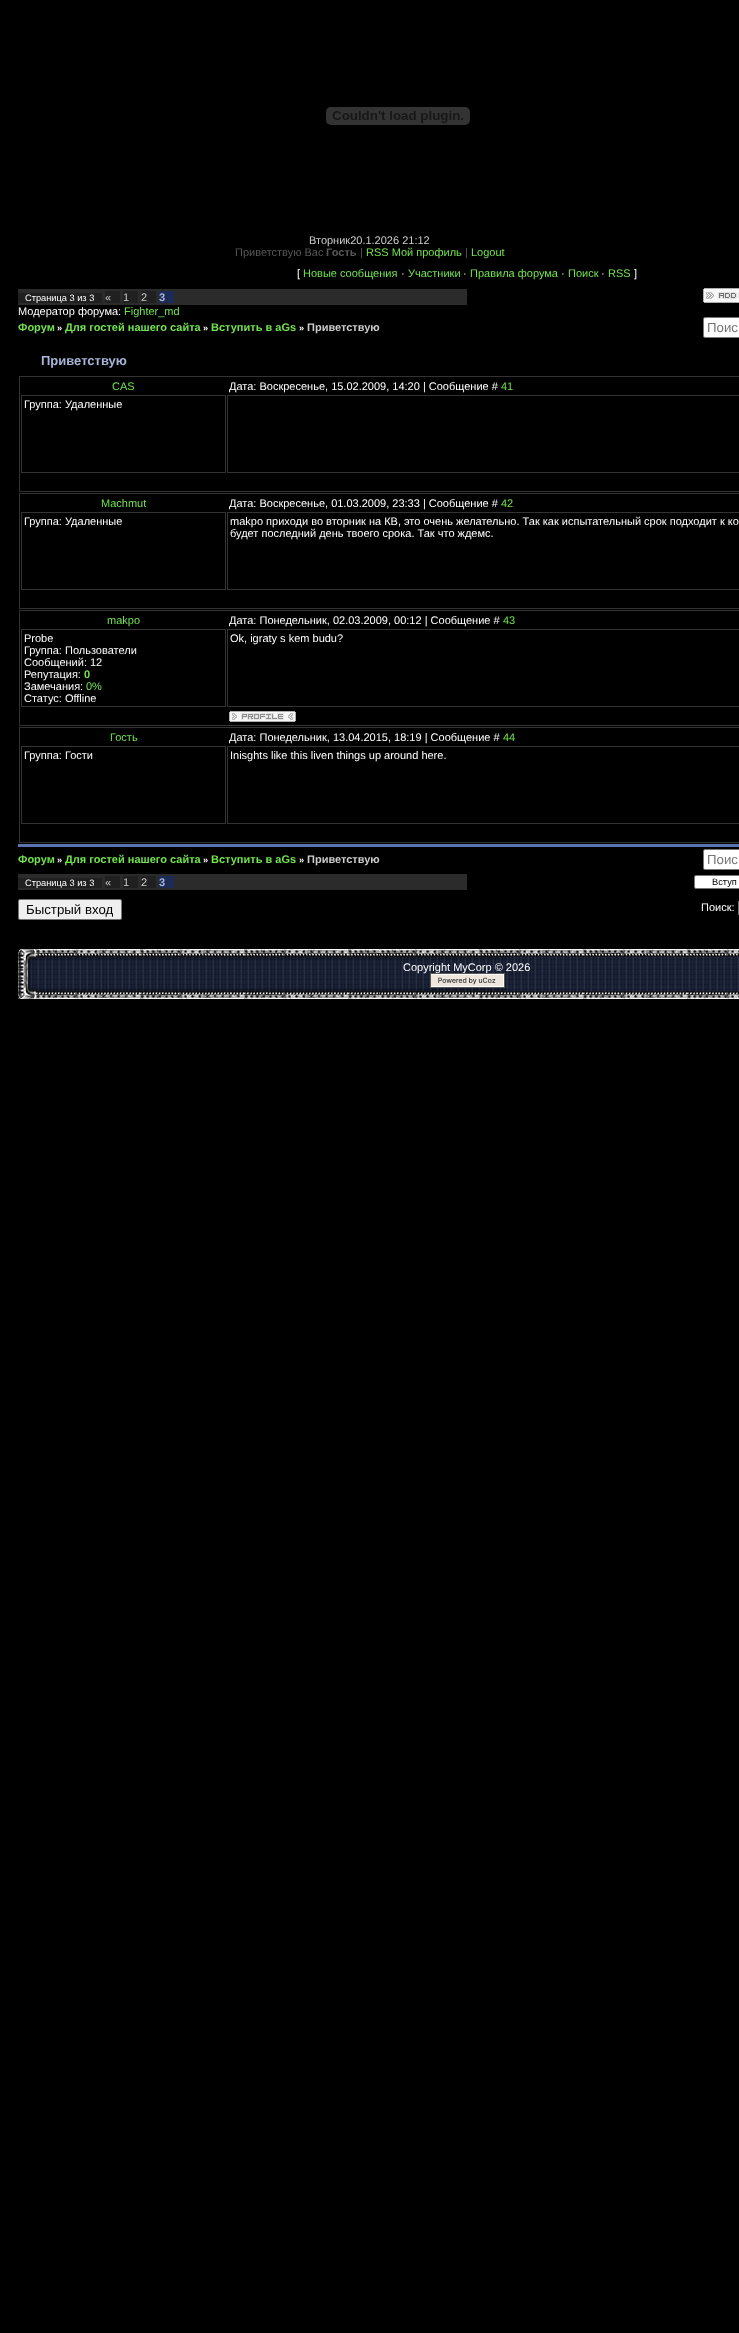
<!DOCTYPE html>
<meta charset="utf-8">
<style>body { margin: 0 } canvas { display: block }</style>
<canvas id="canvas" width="739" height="2333"></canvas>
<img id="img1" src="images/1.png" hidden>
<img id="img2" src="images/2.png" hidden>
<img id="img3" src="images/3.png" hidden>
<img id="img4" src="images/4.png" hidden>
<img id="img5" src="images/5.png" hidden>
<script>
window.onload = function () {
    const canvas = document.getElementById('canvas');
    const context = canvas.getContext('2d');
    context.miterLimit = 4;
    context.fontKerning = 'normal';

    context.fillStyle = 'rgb(0, 0, 0)';
    context.fillRect(0, 0, 739, 2333);
    context.drawImage(document.getElementById('img1'), 326, 107, 144, 18);
    context.fillStyle = 'rgb(43, 43, 43)';
    context.fillRect(18, 289, 449, 16);
    context.fillStyle = 'rgb(32, 32, 32)';
    context.fillRect(18, 293, 84, 10);
    context.fillRect(105, 291, 15, 12);
    context.fillRect(123, 291, 15, 12);
    context.fillRect(141, 291, 15, 12);
    context.fillStyle = 'rgb(29, 44, 87)';
    context.fillRect(159, 291, 15, 12);
    context.drawImage(document.getElementById('img2'), 703, 288, 36, 15);
    context.fillStyle = 'rgb(255, 255, 255)';
    context.beginPath();
    context.roundRect(703.5, 317.5, 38, 20, 1.5);
    context.fill();
    context.strokeStyle = 'rgb(118, 118, 118)';
    context.stroke();
    context.fillStyle = 'rgb(93, 116, 178)';
    context.fillRect(18, 844, 721, 3);
    context.strokeStyle = 'rgb(51, 51, 51)';
    context.strokeRect(19.5, 376.5, 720, 115);
    context.strokeRect(21.5, 395.5, 204, 77);
    context.strokeRect(227.5, 395.5, 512, 77);
    context.strokeRect(19.5, 493.5, 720, 115);
    context.strokeRect(21.5, 512.5, 204, 77);
    context.strokeRect(227.5, 512.5, 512, 77);
    context.strokeRect(19.5, 610.5, 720, 115);
    context.strokeRect(21.5, 629.5, 204, 77);
    context.strokeRect(227.5, 629.5, 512, 77);
    context.drawImage(document.getElementById('img3'), 229, 711, 67, 11);
    context.strokeRect(19.5, 727.5, 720, 115);
    context.strokeRect(21.5, 746.5, 204, 77);
    context.strokeRect(227.5, 746.5, 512, 77);
    context.fillStyle = 'rgb(255, 255, 255)';
    context.beginPath();
    context.roundRect(703.5, 849.5, 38, 20, 1.5);
    context.fill();
    context.strokeStyle = 'rgb(118, 118, 118)';
    context.stroke();
    context.fillStyle = 'rgb(43, 43, 43)';
    context.fillRect(18, 874, 449, 16);
    context.fillStyle = 'rgb(32, 32, 32)';
    context.fillRect(18, 878, 84, 10);
    context.fillRect(105, 876, 15, 12);
    context.fillRect(123, 876, 15, 12);
    context.fillRect(141, 876, 15, 12);
    context.fillStyle = 'rgb(29, 44, 87)';
    context.fillRect(159, 876, 15, 12);
    context.fillStyle = 'rgb(255, 255, 255)';
    context.beginPath();
    context.roundRect(694.5, 875.5, 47, 13, 1.5);
    context.fill();
    context.stroke();
    context.fillStyle = 'rgb(239, 239, 239)';
    context.beginPath();
    context.roundRect(18.5, 899.5, 103, 20, 1.5);
    context.fill();
    context.stroke();
    context.beginPath();
    context.roundRect(738.5, 900.5, 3, 15, 1.5);
    context.stroke();
    context.drawImage(document.getElementById('img4'), 18, 949, 721, 50);
    context.font = '11px Liberation Sans';
    context.fillStyle = 'rgb(204, 204, 204)';
    context.fillText('Вторник20.1.2026 21:12', 309, 244);
    context.fillStyle = 'rgb(87, 87, 87)';
    context.fillText('Приветствую Вас', 235, 256);
    context.font = 'bold 11px Liberation Sans';
    context.fillText('Гость', 326, 256);
    context.font = '11px Liberation Sans';
    context.fillText('|', 360, 256);
    context.fillStyle = 'rgb(114, 227, 79)';
    context.fillText('RSS Мой профиль', 366, 256);
    context.fillStyle = 'rgb(87, 87, 87)';
    context.fillText('|', 465, 256);
    context.fillStyle = 'rgb(114, 227, 79)';
    context.fillText('Logout', 471, 256);
    context.fillStyle = 'rgb(255, 255, 255)';
    context.fillText('[', 297, 277);
    context.fillStyle = 'rgb(114, 227, 79)';
    context.fillText('Новые сообщения', 303, 277);
    context.fillStyle = 'rgb(255, 255, 255)';
    context.fillText('·', 401, 277);
    context.fillStyle = 'rgb(114, 227, 79)';
    context.fillText('Участники', 408, 277);
    context.fillStyle = 'rgb(255, 255, 255)';
    context.fillText('·', 463, 277);
    context.fillStyle = 'rgb(114, 227, 79)';
    context.fillText('Правила форума', 470, 277);
    context.fillStyle = 'rgb(255, 255, 255)';
    context.fillText('·', 561, 277);
    context.fillStyle = 'rgb(114, 227, 79)';
    context.fillText('Поиск', 568, 277);
    context.fillStyle = 'rgb(255, 255, 255)';
    context.fillText('·', 601, 277);
    context.fillStyle = 'rgb(114, 227, 79)';
    context.fillText('RSS', 608, 277);
    context.fillStyle = 'rgb(255, 255, 255)';
    context.fillText(']', 634, 277);
    context.font = '9.25px Liberation Sans';
    context.fillText('Страница 3 из 3', 25, 301);
    context.font = '11px Liberation Sans';
    context.fillStyle = 'rgb(204, 204, 204)';
    context.fillText('«', 105, 301);
    context.fillText('1', 123, 301);
    context.fillText('2', 141, 301);
    context.font = 'bold 11px Liberation Sans';
    context.fillStyle = 'rgb(169, 181, 216)';
    context.fillText('3', 159, 301);
    context.font = '11px Liberation Sans';
    context.fillStyle = 'rgb(255, 255, 255)';
    context.fillText('Модератор форума:', 18, 315);
    context.fillStyle = 'rgb(114, 227, 79)';
    context.fillText('Fighter_md', 124, 315);
    context.font = 'bold 11px Liberation Sans';
    context.fillText('Форум', 18, 331);
    context.font = 'bold 9.25px Liberation Sans';
    context.fillStyle = 'rgb(255, 255, 255)';
    context.fillText('»', 57, 331);
    context.font = 'bold 11px Liberation Sans';
    context.fillStyle = 'rgb(114, 227, 79)';
    context.fillText('Для гостей нашего сайта', 65, 331);
    context.font = 'bold 9.25px Liberation Sans';
    context.fillStyle = 'rgb(255, 255, 255)';
    context.fillText('»', 203, 331);
    context.font = 'bold 11px Liberation Sans';
    context.fillStyle = 'rgb(114, 227, 79)';
    context.fillText('Вступить в aGs', 211, 331);
    context.font = 'bold 9.25px Liberation Sans';
    context.fillStyle = 'rgb(255, 255, 255)';
    context.fillText('»', 299, 331);
    context.font = 'bold 11px Liberation Sans';
    context.fillStyle = 'rgb(204, 204, 204)';
    context.fillText('Приветствую', 307, 331);
    context.font = '13.25px Liberation Sans';
    context.fillStyle = 'rgb(117, 117, 117)';
    context.fillText('Поис', 707, 332);
    context.font = 'bold 13px Liberation Sans';
    context.fillStyle = 'rgb(169, 181, 216)';
    context.fillText('Приветствую', 41, 365);
    context.font = '11px Liberation Sans';
    context.fillStyle = 'rgb(114, 227, 79)';
    context.fillText('CAS', 112, 390);
    context.fillStyle = 'rgb(255, 255, 255)';
    context.fillText('Дата: Воскресенье, 15.02.2009, 14:20 | Сообщение #', 229, 390);
    context.fillStyle = 'rgb(114, 227, 79)';
    context.fillText('41', 501, 390);
    context.fillStyle = 'rgb(255, 255, 255)';
    context.fillText('Группа: Удаленные', 24, 408);
    context.fillStyle = 'rgb(114, 227, 79)';
    context.fillText('Machmut', 101, 507);
    context.fillStyle = 'rgb(255, 255, 255)';
    context.fillText('Дата: Воскресенье, 01.03.2009, 23:33 | Сообщение #', 229, 507);
    context.fillStyle = 'rgb(114, 227, 79)';
    context.fillText('42', 501, 507);
    context.fillStyle = 'rgb(255, 255, 255)';
    context.fillText('Группа: Удаленные', 24, 525);
    context.fillText('makpo приходи во вторник на КВ, это очень желательно. Так как испытательный срок подходит к ко', 230, 525);
    context.fillText('будет последний день твоего срока. Так что ждемс.', 230, 537);
    context.fillStyle = 'rgb(114, 227, 79)';
    context.fillText('makpo', 107, 624);
    context.fillStyle = 'rgb(255, 255, 255)';
    context.fillText('Дата: Понедельник, 02.03.2009, 00:12 | Сообщение #', 229, 624);
    context.fillStyle = 'rgb(114, 227, 79)';
    context.fillText('43', 503, 624);
    context.fillStyle = 'rgb(255, 255, 255)';
    context.fillText('Probe', 24, 642);
    context.fillText('Группа: Пользователи', 24, 654);
    context.fillText('Сообщений: 12', 24, 666);
    context.fillText('Репутация:', 24, 678);
    context.font = 'bold 11px Liberation Sans';
    context.fillStyle = 'rgb(114, 227, 79)';
    context.fillText('0', 84, 678);
    context.font = '11px Liberation Sans';
    context.fillStyle = 'rgb(255, 255, 255)';
    context.fillText('Замечания:', 24, 690);
    context.fillStyle = 'rgb(114, 227, 79)';
    context.fillText('0%', 86, 690);
    context.fillStyle = 'rgb(255, 255, 255)';
    context.fillText('Статус: Offline', 24, 702);
    context.fillText('Ok, igraty s kem budu?', 230, 642);
    context.fillStyle = 'rgb(114, 227, 79)';
    context.fillText('Гость', 110, 741);
    context.fillStyle = 'rgb(255, 255, 255)';
    context.fillText('Дата: Понедельник, 13.04.2015, 18:19 | Сообщение #', 229, 741);
    context.fillStyle = 'rgb(114, 227, 79)';
    context.fillText('44', 503, 741);
    context.fillStyle = 'rgb(255, 255, 255)';
    context.fillText('Группа: Гости', 24, 759);
    context.fillText('Inisghts like this liven things up around here.', 230, 759);
    context.font = 'bold 11px Liberation Sans';
    context.fillStyle = 'rgb(114, 227, 79)';
    context.fillText('Форум', 18, 863);
    context.font = 'bold 9.25px Liberation Sans';
    context.fillStyle = 'rgb(255, 255, 255)';
    context.fillText('»', 57, 863);
    context.font = 'bold 11px Liberation Sans';
    context.fillStyle = 'rgb(114, 227, 79)';
    context.fillText('Для гостей нашего сайта', 65, 863);
    context.font = 'bold 9.25px Liberation Sans';
    context.fillStyle = 'rgb(255, 255, 255)';
    context.fillText('»', 203, 863);
    context.font = 'bold 11px Liberation Sans';
    context.fillStyle = 'rgb(114, 227, 79)';
    context.fillText('Вступить в aGs', 211, 863);
    context.font = 'bold 9.25px Liberation Sans';
    context.fillStyle = 'rgb(255, 255, 255)';
    context.fillText('»', 299, 863);
    context.font = 'bold 11px Liberation Sans';
    context.fillStyle = 'rgb(204, 204, 204)';
    context.fillText('Приветствую', 307, 863);
    context.font = '13.25px Liberation Sans';
    context.fillStyle = 'rgb(117, 117, 117)';
    context.fillText('Поис', 707, 864);
    context.font = '9.25px Liberation Sans';
    context.fillStyle = 'rgb(255, 255, 255)';
    context.fillText('Страница 3 из 3', 25, 886);
    context.font = '11px Liberation Sans';
    context.fillStyle = 'rgb(204, 204, 204)';
    context.fillText('«', 105, 886);
    context.fillText('1', 123, 886);
    context.fillText('2', 141, 886);
    context.font = 'bold 11px Liberation Sans';
    context.fillStyle = 'rgb(169, 181, 216)';
    context.fillText('3', 159, 886);
    context.font = '9.25px Liberation Sans';
    context.fillStyle = 'rgb(0, 0, 0)';
    context.fillText('Вступ', 712, 885);
    context.font = '13.25px Liberation Sans';
    context.fillText('Быстрый вход', 26, 914);
    context.font = '11px Liberation Sans';
    context.fillStyle = 'rgb(255, 255, 255)';
    context.fillText('Поиск:', 701, 911);
    context.fillText('Copyright MyCorp © 2026', 403, 971);
    context.drawImage(document.getElementById('img5'), 430, 973, 75, 15);
};
</script>
